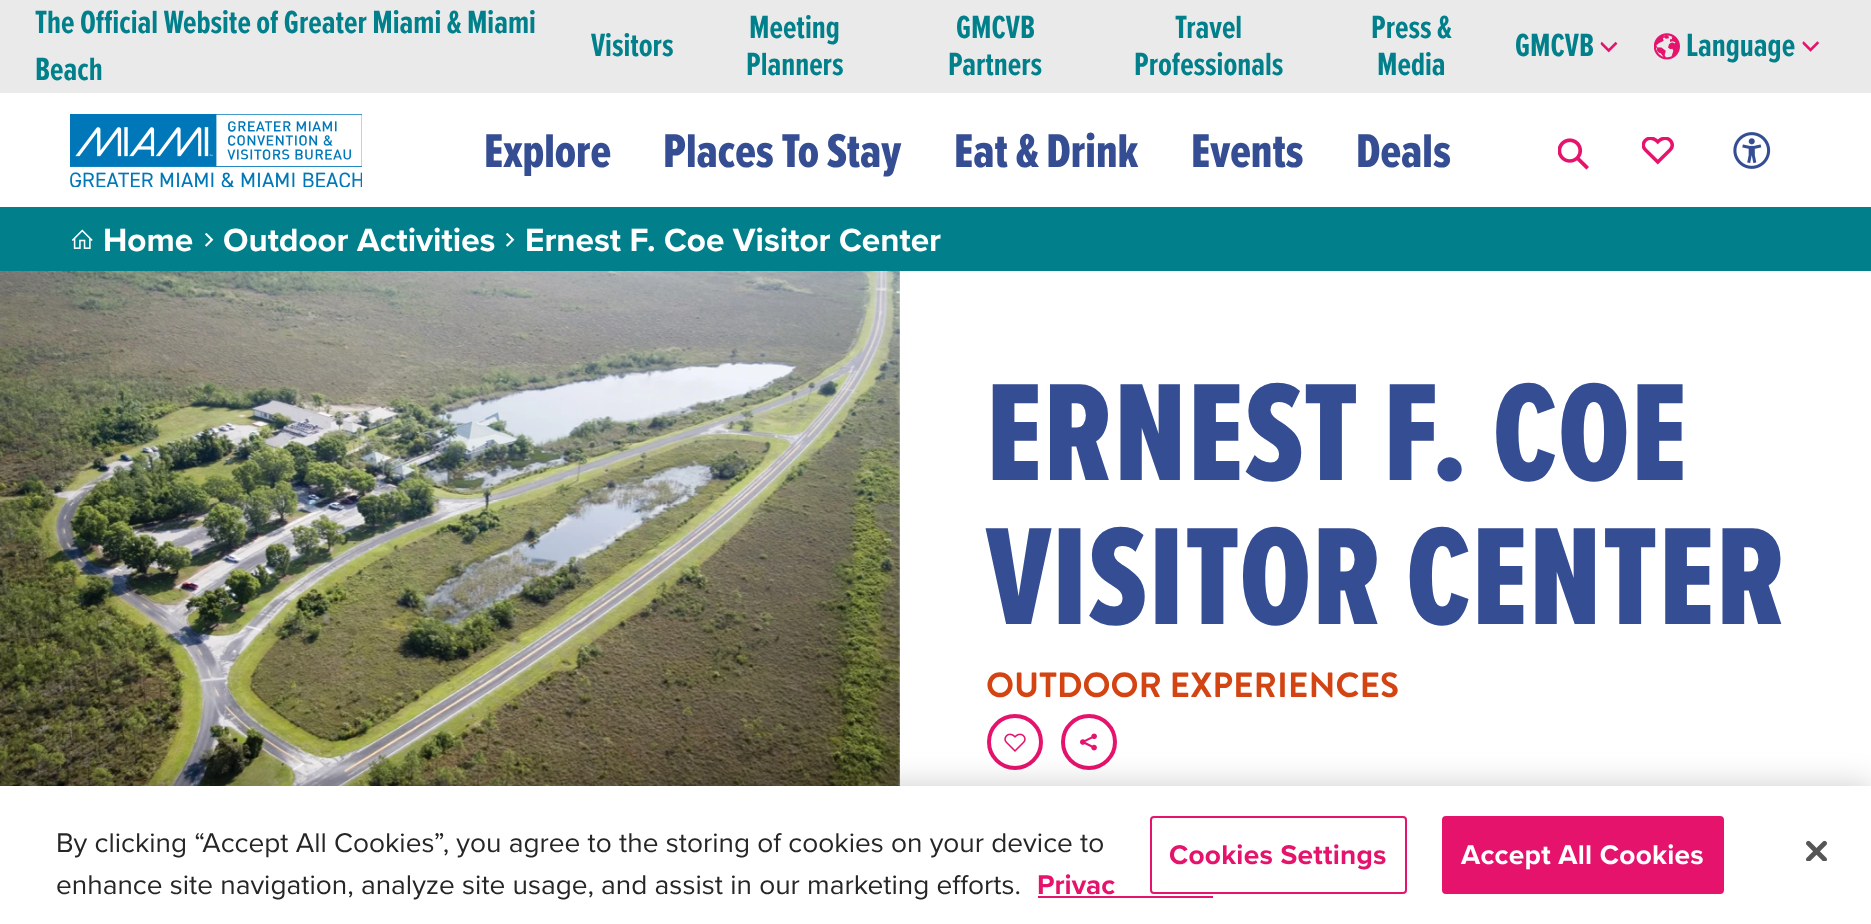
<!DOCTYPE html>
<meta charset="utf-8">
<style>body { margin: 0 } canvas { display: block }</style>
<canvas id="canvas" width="1871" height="924"></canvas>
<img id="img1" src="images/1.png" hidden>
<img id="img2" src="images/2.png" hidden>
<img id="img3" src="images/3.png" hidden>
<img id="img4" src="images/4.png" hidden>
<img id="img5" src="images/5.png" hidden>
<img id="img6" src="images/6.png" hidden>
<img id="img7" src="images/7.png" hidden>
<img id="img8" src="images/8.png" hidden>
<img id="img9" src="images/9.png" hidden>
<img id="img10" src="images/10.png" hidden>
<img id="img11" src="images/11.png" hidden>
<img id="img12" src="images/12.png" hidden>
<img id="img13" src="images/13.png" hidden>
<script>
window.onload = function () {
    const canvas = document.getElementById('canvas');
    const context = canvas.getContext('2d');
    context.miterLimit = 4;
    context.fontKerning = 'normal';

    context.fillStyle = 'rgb(255, 255, 255)';
    context.fillRect(0, 0, 1871, 924);
    context.fillStyle = 'rgb(234, 234, 234)';
    context.fillRect(0, 0, 1871, 93);
    context.drawImage(document.getElementById('img1'), 1600, 41, 18, 12);
    context.drawImage(document.getElementById('img2'), 1654, 33, 26, 27);
    context.drawImage(document.getElementById('img3'), 1802, 41, 18, 11);
    context.drawImage(document.getElementById('img4'), 70, 114, 292, 73);
    context.drawImage(document.getElementById('img5'), 1558, 138, 31, 32);
    context.drawImage(document.getElementById('img6'), 1642, 137, 32, 28);
    context.drawImage(document.getElementById('img7'), 1733, 132, 38, 37);
    context.fillStyle = 'rgb(1, 128, 139)';
    context.fillRect(0, 207, 1871, 64);
    context.drawImage(document.getElementById('img8'), 71, 229, 22, 20);
    context.drawImage(document.getElementById('img9'), 205, 233, 9, 14);
    context.drawImage(document.getElementById('img9'), 506, 233, 9, 14);
    context.drawImage(document.getElementById('img10'), 0, 271, 900, 515);
    context.beginPath();
    context.arc(1015, 742, 26, 0, 2 * Math.PI);
    context.strokeStyle = 'rgb(229, 19, 108)';
    context.lineWidth = 4;
    context.stroke();
    context.drawImage(document.getElementById('img11'), 1004, 733, 22, 19);
    context.beginPath();
    context.arc(1089, 742, 26, 0, 2 * Math.PI);
    context.stroke();
    context.drawImage(document.getElementById('img12'), 1080, 733, 17, 18);
    context.fillStyle = 'rgba(0, 0, 0, 0.2)';
    context.filter = 'blur(16px)';
    context.beginPath();
    context.rect(0, 786, 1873, 138);
    context.fill();
    context.filter = 'none';
    context.fillStyle = 'rgb(255, 255, 255)';
    context.fillRect(0, 786, 1871, 138);
    context.fillStyle = 'rgb(229, 19, 108)';
    context.fillRect(1038, 896, 175, 2);
    context.beginPath();
    context.roundRect(1151, 817, 255, 76, 3);
    context.lineWidth = 2;
    context.stroke();
    context.beginPath();
    context.roundRect(1443, 817, 280, 76, 3);
    context.fill();
    context.stroke();
    context.drawImage(document.getElementById('img13'), 1806, 840, 21, 21);
    context.font = 'bold 33.25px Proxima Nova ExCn';
    context.fillStyle = 'rgb(1, 128, 139)';
    context.fillText('The Official Website of Greater Miami & Miami', 35, 33);
    context.fillText('Beach', 35, 80);
    context.fillText('Visitors', 591, 56);
    context.fillText('Meeting', 749, 38);
    context.fillText('Planners', 746, 75);
    context.fillText('GMCVB', 956, 38);
    context.fillText('Partners', 948, 75);
    context.fillText('Travel', 1175, 38);
    context.fillText('Professionals', 1134, 75);
    context.fillText('Press &', 1371, 38);
    context.fillText('Media', 1377, 75);
    context.fillText('GMCVB', 1515, 56);
    context.fillText('Language', 1686, 56);
    context.font = '800 49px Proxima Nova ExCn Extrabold';
    context.fillStyle = 'rgb(53, 77, 146)';
    context.fillText('Explore', 484, 167);
    context.fillText('Places To Stay', 663, 167);
    context.fillText('Eat & Drink', 954, 167);
    context.fillText('Events', 1191, 167);
    context.fillText('Deals', 1356, 167);
    context.font = 'bold 33.25px Proxima Nova';
    context.fillStyle = 'rgb(255, 255, 255)';
    context.fillText('Home', 103, 251);
    context.fillText('Outdoor Activities', 223, 251);
    context.fillText('Ernest F. Coe Visitor Center', 525, 251);
    context.letterSpacing = '0.9px';
    context.font = '800 143.5px Proxima Nova ExCn Extrabold';
    context.fillStyle = 'rgb(53, 77, 146)';
    context.fillText('ERNEST F. COE', 986, 480);
    context.fillText('VISITOR CENTER', 986, 624);
    context.letterSpacing = '0px';
    context.font = 'bold 35px Brandon Grotesque';
    context.fillStyle = 'rgb(211, 68, 18)';
    context.fillText('OUTDOOR EXPERIENCES', 986, 697);
    context.font = '28px Proxima Nova';
    context.fillStyle = 'rgb(38, 38, 38)';
    context.fillText('By clicking “Accept All Cookies”, you agree to the storing of cookies on your device to', 56, 852);
    context.fillText('enhance site navigation, analyze site usage, and assist in our marketing efforts.', 56, 894);
    context.font = 'bold 28px Proxima Nova';
    context.fillStyle = 'rgb(229, 19, 108)';
    context.fillText('Privac', 1037, 894);
    context.letterSpacing = '0.25px';
    context.fillText('Cookies Settings', 1169, 864);
    context.fillStyle = 'rgb(255, 255, 255)';
    context.fillText('Accept All Cookies', 1461, 864);
};
</script>
